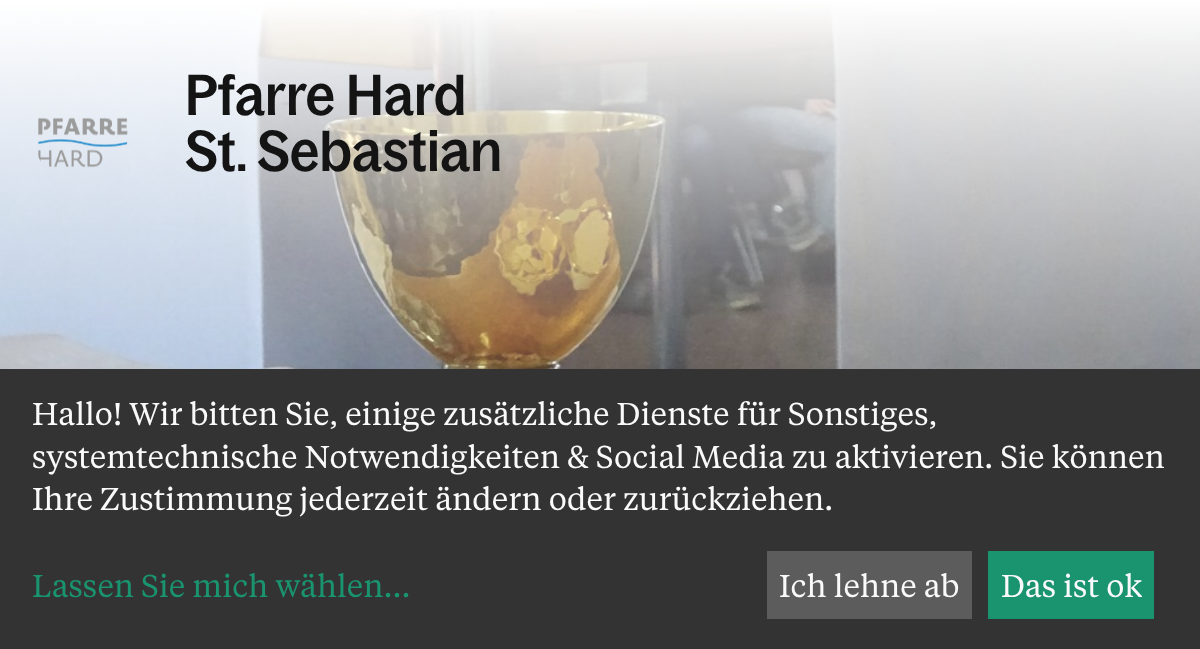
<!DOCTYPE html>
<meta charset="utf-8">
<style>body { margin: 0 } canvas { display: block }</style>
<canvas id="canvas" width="1200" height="649"></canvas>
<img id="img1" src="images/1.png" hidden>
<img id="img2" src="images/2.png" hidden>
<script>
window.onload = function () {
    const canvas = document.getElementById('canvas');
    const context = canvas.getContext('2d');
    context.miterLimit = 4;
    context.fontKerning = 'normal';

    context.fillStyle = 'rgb(255, 255, 255)';
    context.fillRect(0, 0, 1200, 649);
    context.drawImage(document.getElementById('img1'), 0, 0, 1200, 369);
    context.drawImage(document.getElementById('img2'), 38, 117, 90, 51);
    context.fillStyle = 'rgb(51, 51, 51)';
    context.fillRect(0, 369, 1200, 280);
    context.fillStyle = 'rgb(92, 92, 92)';
    context.fillRect(767, 551, 205, 68);
    context.fillStyle = 'rgb(26, 147, 111)';
    context.fillRect(988, 551, 166, 68);
    context.font = '500 56.25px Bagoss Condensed';
    context.fillStyle = 'rgb(20, 20, 20)';
    context.fillText('Pfarre Hard', 185, 115);
    context.fillText('St. Sebastian', 185, 171);
    context.font = '31.5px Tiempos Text';
    context.fillStyle = 'rgb(250, 250, 250)';
    context.fillText('Hallo! Wir bitten Sie, einige zusätzliche Dienste für Sonstiges,', 32, 425);
    context.fillText('systemtechnische Notwendigkeiten & Social Media zu aktivieren. Sie können', 32, 468);
    context.fillText('Ihre Zustimmung jederzeit ändern oder zurückziehen.', 32, 510);
    context.fillStyle = 'rgb(26, 147, 111)';
    context.fillText('Lassen Sie mich wählen...', 32, 597);
    context.fillStyle = 'rgb(250, 250, 250)';
    context.fillText('Ich lehne ab', 779, 597);
    context.fillText('Das ist ok', 1001, 597);
};
</script>
